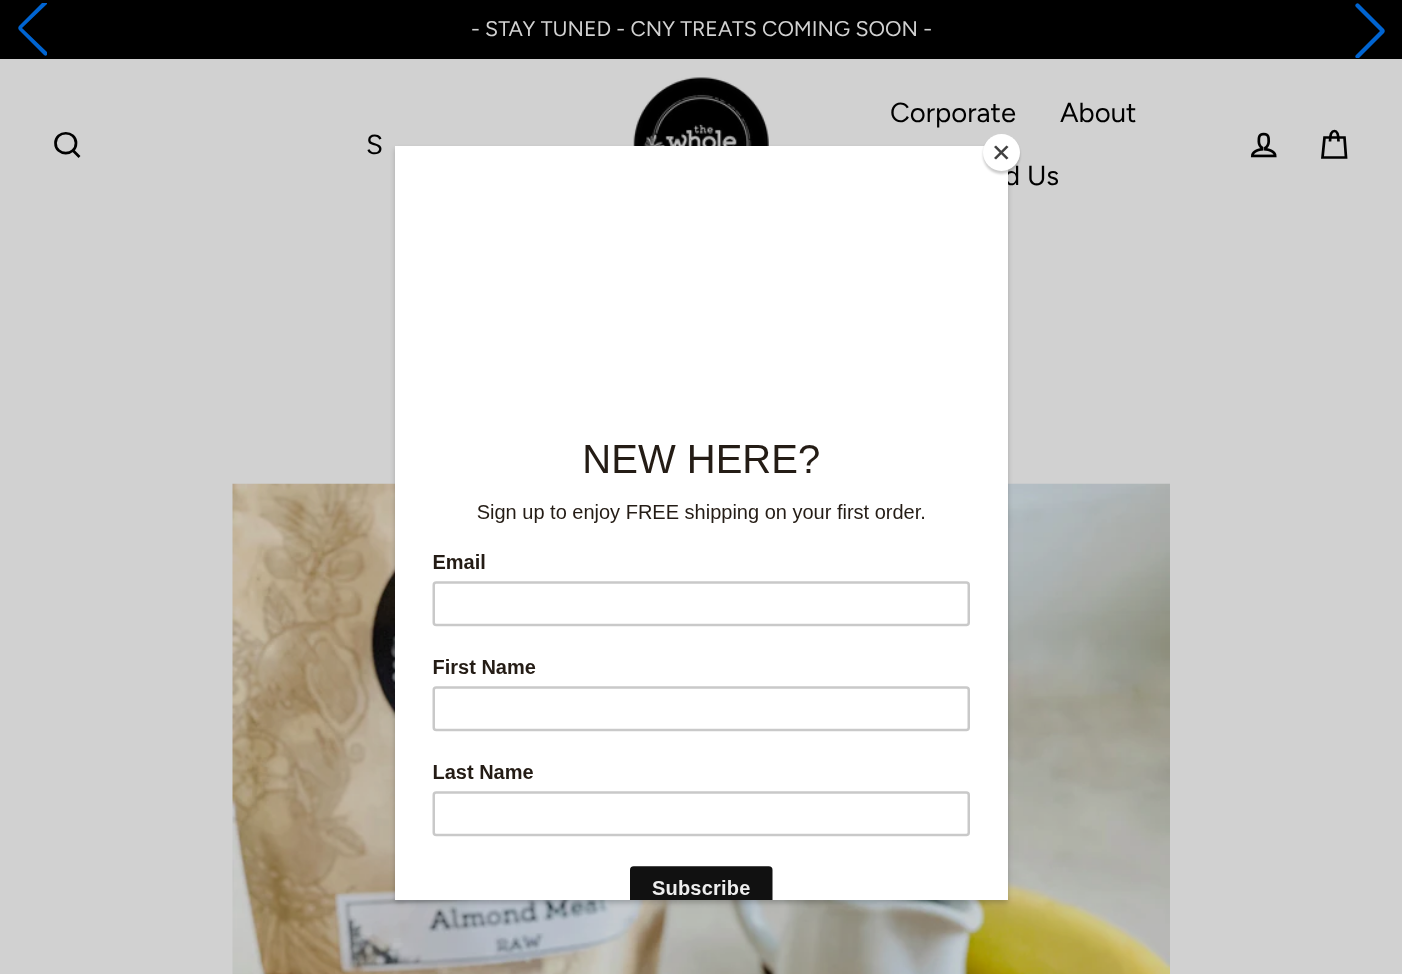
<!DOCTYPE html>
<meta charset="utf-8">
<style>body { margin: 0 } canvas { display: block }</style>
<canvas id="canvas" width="1402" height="974"></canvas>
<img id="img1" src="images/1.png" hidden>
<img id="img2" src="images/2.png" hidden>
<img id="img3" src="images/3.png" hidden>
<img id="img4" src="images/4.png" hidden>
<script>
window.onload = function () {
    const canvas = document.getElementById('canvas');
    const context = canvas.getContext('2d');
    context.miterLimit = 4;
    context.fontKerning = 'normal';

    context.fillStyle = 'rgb(209, 209, 209)';
    context.fillRect(0, 0, 1402, 974);
    context.fillStyle = 'rgb(0, 0, 0)';
    context.fillRect(0, 0, 1402, 59);
    context.save();
    context.beginPath();
    context.rect(5, 3, 55, 55);
    context.clip();
    context.fillStyle = 'rgb(0, 100, 209)';
    context.beginPath();
    context.moveTo(47, 1);
    context.bezierCurveTo(47, 2, 47, 3, 47, 4);
    context.lineTo(22, 28);
    context.lineTo(47, 52);
    context.bezierCurveTo(47, 53, 47, 54, 47, 55);
    context.bezierCurveTo(46, 56, 45, 56, 44, 55);
    context.lineTo(19, 30);
    context.bezierCurveTo(18, 29, 18, 27, 19, 26);
    context.lineTo(44, 1);
    context.bezierCurveTo(45, 1, 46, 1, 47, 1);
    context.closePath();
    context.fill();
    context.restore();
    context.fillStyle = 'rgb(0, 100, 209)';
    context.beginPath();
    context.moveTo(1356, 58);
    context.bezierCurveTo(1355, 57, 1355, 56, 1356, 55);
    context.lineTo(1380, 31);
    context.lineTo(1356, 7);
    context.bezierCurveTo(1355, 6, 1355, 5, 1356, 4);
    context.bezierCurveTo(1357, 3, 1358, 3, 1359, 4);
    context.lineTo(1384, 29);
    context.bezierCurveTo(1385, 30, 1385, 32, 1384, 33);
    context.lineTo(1359, 58);
    context.bezierCurveTo(1358, 58, 1357, 58, 1356, 58);
    context.closePath();
    context.fill();
    context.beginPath();
    context.moveTo(76, 143);
    context.bezierCurveTo(76, 156.5, 55.5, 156.5, 55.5, 143);
    context.bezierCurveTo(55.5, 130, 76, 130, 76, 143);
    context.closePath();
    context.moveTo(79.5, 157);
    context.lineTo(73, 150.5);
    context.strokeStyle = 'rgb(0, 0, 0)';
    context.lineWidth = 2.7;
    context.stroke();
    context.drawImage(document.getElementById('img1'), 633, 77, 136, 69);
    context.drawImage(document.getElementById('img2'), 1250, 132, 27, 26);
    context.beginPath();
    context.moveTo(1330, 141.5);
    context.bezierCurveTo(1330, 133, 1332, 131, 1334.5, 131);
    context.bezierCurveTo(1336.5, 131, 1338.5, 133, 1338.5, 141.5);
    context.moveTo(1324.5, 137.5);
    context.lineTo(1344.5, 137.5);
    context.lineTo(1346, 157.5);
    context.lineTo(1322.5, 157.5);
    context.closePath();
    context.stroke();
    context.drawImage(document.getElementById('img3'), 232, 483, 938, 491);
    context.fillStyle = 'rgba(0, 0, 0, 0.2)';
    context.filter = 'blur(2.5px)';
    context.beginPath();
    context.rect(395, 149, 613, 754);
    context.fill();
    context.filter = 'none';
    context.font = '21.25px Figtree';
    context.fillStyle = 'rgb(209, 209, 209)';
    context.fillText('- STAY TUNED - CNY TREATS COMING SOON -', 471, 36);
    context.font = '27.5px Figtree';
    context.fillStyle = 'rgb(0, 0, 0)';
    context.fillText('S', 366, 154);
    context.fillText('Corporate', 890, 122);
    context.fillText('About', 1060, 122);
    context.fillText('d Us', 1004, 185);
    context.drawImage(document.getElementById('img4'), 395, 146, 613, 754);
    context.fillStyle = 'rgba(0, 0, 0, 0.2)';
    context.filter = 'blur(1px)';
    context.beginPath();
    context.roundRect(983, 136, 37, 38, 18.5);
    context.fill();
    context.filter = 'none';
    context.fillStyle = 'rgb(255, 255, 255)';
    context.beginPath();
    context.arc(1001.5, 152.5, 18.5, 0, 2 * Math.PI);
    context.fill();
    context.fillStyle = 'rgb(65, 65, 65)';
    context.beginPath();
    context.moveTo(1006.5, 145.5);
    context.lineTo(1008.5, 147);
    context.lineTo(996, 159.5);
    context.lineTo(994, 158);
    context.closePath();
    context.fill();
    context.beginPath();
    context.moveTo(994, 147);
    context.lineTo(996, 145.5);
    context.lineTo(1008.5, 158);
    context.lineTo(1006.5, 159.5);
    context.closePath();
    context.fill();
};
</script>
